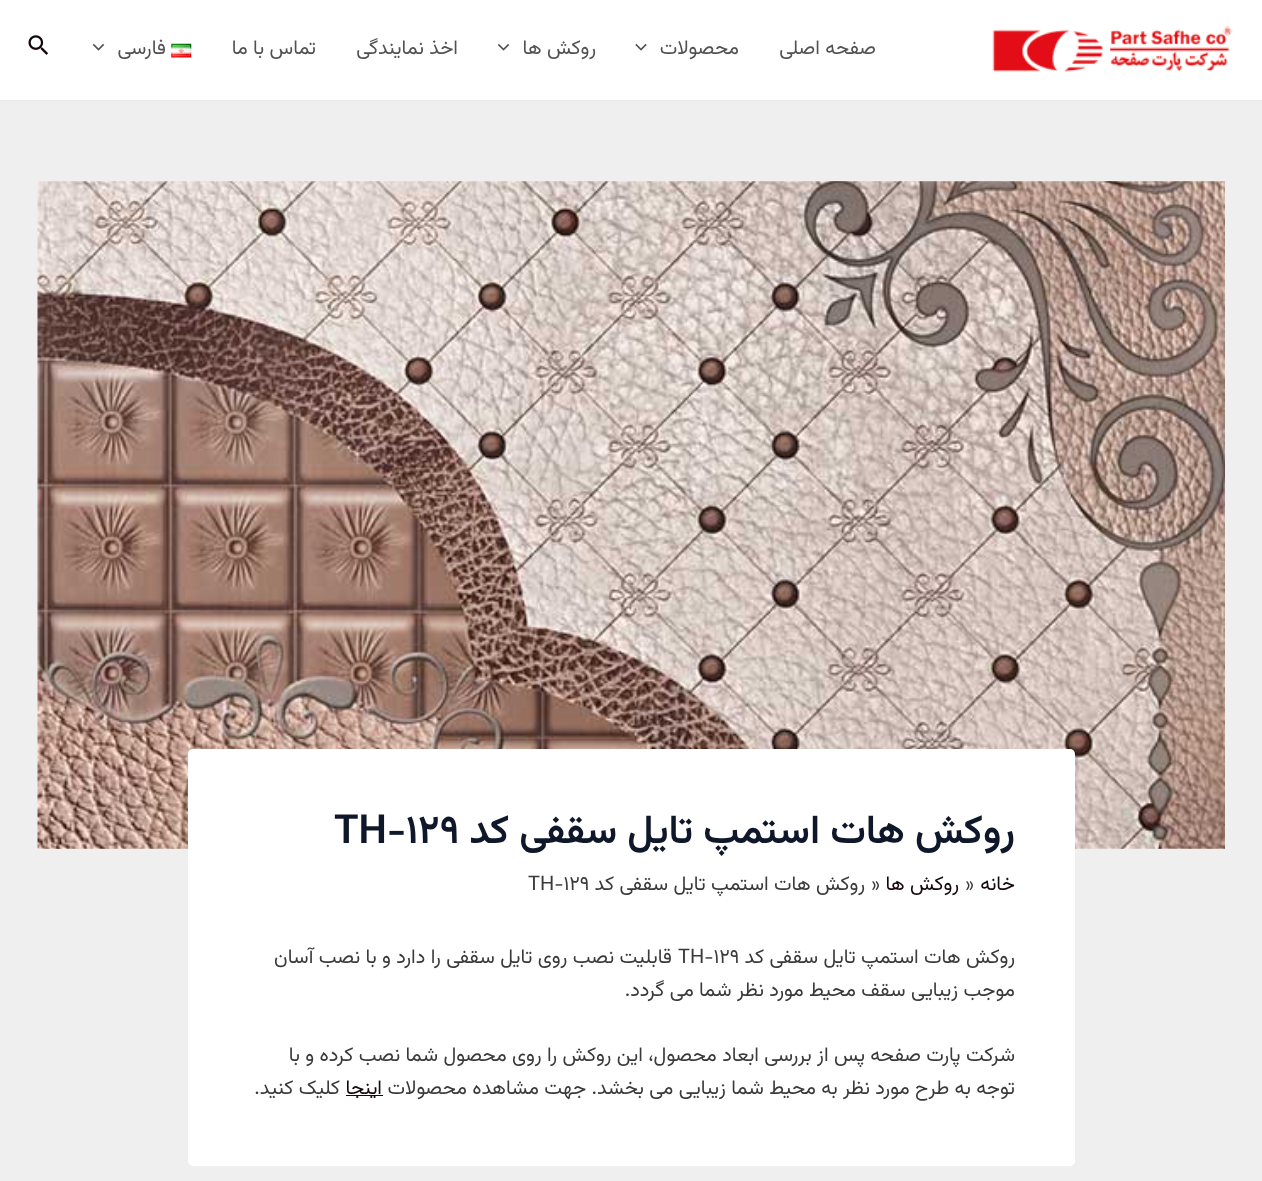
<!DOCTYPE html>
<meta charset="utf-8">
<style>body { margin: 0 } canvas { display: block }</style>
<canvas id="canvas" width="1262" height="1181"></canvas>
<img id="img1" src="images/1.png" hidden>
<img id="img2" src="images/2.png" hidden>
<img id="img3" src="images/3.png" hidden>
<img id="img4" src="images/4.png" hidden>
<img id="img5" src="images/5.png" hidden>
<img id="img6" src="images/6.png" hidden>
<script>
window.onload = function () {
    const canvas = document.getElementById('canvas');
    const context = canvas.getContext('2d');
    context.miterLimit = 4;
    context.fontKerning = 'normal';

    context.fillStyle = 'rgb(239, 239, 239)';
    context.fillRect(0, 0, 1262, 1181);
    context.fillStyle = 'rgb(255, 255, 255)';
    context.fillRect(0, 0, 1262, 100);
    context.fillStyle = 'rgb(234, 234, 234)';
    context.fillRect(0, 100, 1262, 1);
    context.drawImage(document.getElementById('img1'), 992, 26, 241, 46);
    context.drawImage(document.getElementById('img2'), 635, 43, 12, 8);
    context.drawImage(document.getElementById('img3'), 498, 43, 12, 8);
    context.drawImage(document.getElementById('img4'), 171, 43, 21, 15);
    context.drawImage(document.getElementById('img3'), 93, 43, 12, 8);
    context.drawImage(document.getElementById('img5'), 28, 35, 20, 20);
    context.drawImage(document.getElementById('img6'), 37, 181, 1188, 668);
    context.fillStyle = 'rgb(255, 255, 255)';
    context.beginPath();
    context.roundRect(188, 749, 887, 417, 5);
    context.fill();
    context.fillStyle = 'rgb(20, 6, 9)';
    context.fillRect(346, 1095, 37, 1);
    context.direction = 'rtl';
    context.font = '20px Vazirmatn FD';
    context.fillStyle = 'rgb(81, 81, 81)';
    context.fillText('صفحه اصلی', 876, 54);
    context.fillText('محصولات', 739, 54);
    context.fillText('روکش ها', 596, 54);
    context.fillText('اخذ نمایندگی', 458, 54);
    context.fillText('تماس با ما', 316, 54);
    context.fillText('فارسی', 166, 54);
    context.font = '600 40px Vazirmatn FD';
    context.fillStyle = 'rgb(15, 23, 42)';
    context.fillText('روکش هات استمپ تایل سقفی کد', 1015, 843);
    context.direction = 'ltr';
    context.fillText('TH-129', 334, 843);
    context.direction = 'rtl';
    context.font = '20px Vazirmatn FD';
    context.fillStyle = 'rgb(20, 6, 9)';
    context.fillText('خانه', 1015, 890);
    context.direction = 'ltr';
    context.fillStyle = 'rgb(58, 58, 58)';
    context.fillText('»', 965, 890);
    context.direction = 'rtl';
    context.fillStyle = 'rgb(20, 6, 9)';
    context.fillText('روکش ها', 959, 890);
    context.direction = 'ltr';
    context.fillStyle = 'rgb(58, 58, 58)';
    context.fillText('»', 871, 890);
    context.direction = 'rtl';
    context.fillText('روکش هات استمپ تایل سقفی کد', 865, 890);
    context.direction = 'ltr';
    context.fillText('TH-129', 528, 890);
    context.direction = 'rtl';
    context.fillText('روکش هات استمپ تایل سقفی کد', 1015, 963);
    context.direction = 'ltr';
    context.fillText('TH-129', 678, 963);
    context.direction = 'rtl';
    context.fillText('قابلیت نصب روی تایل سقفی را دارد و با نصب آسان', 672, 963);
    context.fillText('موجب زیبایی سقف محیط مورد نظر شما می گردد.', 1015, 996);
    context.fillText('شرکت پارت صفحه پس از بررسی ابعاد محصول، این روکش را روی محصول شما نصب کرده و با', 1015, 1061);
    context.fillText('توجه به طرح مورد نظر به محیط شما زیبایی می بخشد. جهت مشاهده محصولات', 1015, 1094);
    context.fillStyle = 'rgb(20, 6, 9)';
    context.fillText('اینجا', 382, 1094);
    context.fillStyle = 'rgb(58, 58, 58)';
    context.fillText('کلیک کنید.', 340, 1094);
};
</script>
